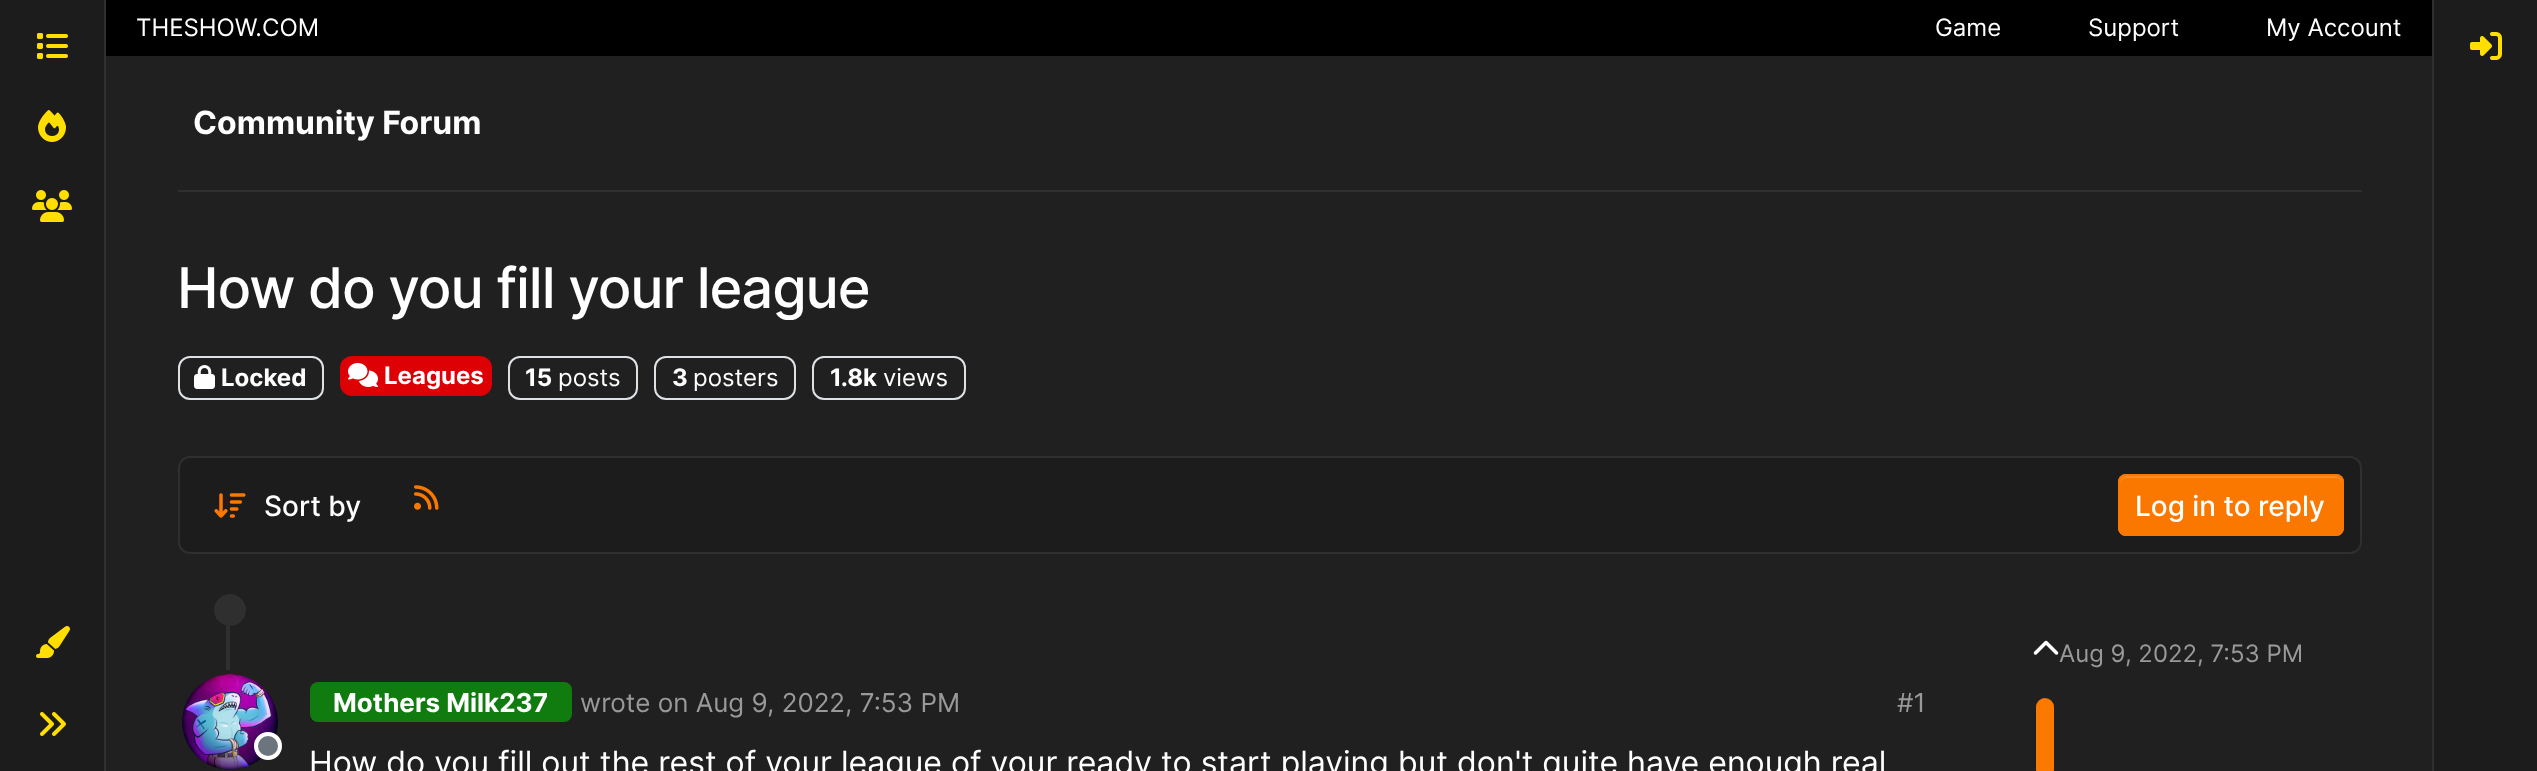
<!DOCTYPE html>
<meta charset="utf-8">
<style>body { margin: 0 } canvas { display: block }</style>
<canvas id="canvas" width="2537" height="771"></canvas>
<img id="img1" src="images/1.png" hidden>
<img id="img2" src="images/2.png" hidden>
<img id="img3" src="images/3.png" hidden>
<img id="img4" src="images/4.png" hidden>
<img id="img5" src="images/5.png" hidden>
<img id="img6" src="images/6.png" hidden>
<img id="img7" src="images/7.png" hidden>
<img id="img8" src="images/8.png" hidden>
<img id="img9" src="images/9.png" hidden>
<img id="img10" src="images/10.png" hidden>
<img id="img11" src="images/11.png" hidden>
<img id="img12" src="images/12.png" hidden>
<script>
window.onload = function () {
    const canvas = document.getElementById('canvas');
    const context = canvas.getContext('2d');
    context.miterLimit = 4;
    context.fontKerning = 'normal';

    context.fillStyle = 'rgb(32, 32, 32)';
    context.fillRect(0, 0, 2537, 771);
    context.fillStyle = 'rgb(29, 28, 28)';
    context.fillRect(0, 0, 104, 771);
    context.fillStyle = 'rgb(47, 47, 47)';
    context.fillRect(104, 0, 2, 771);
    context.drawImage(document.getElementById('img1'), 37, 33, 31, 26);
    context.drawImage(document.getElementById('img2'), 38, 110, 28, 32);
    context.drawImage(document.getElementById('img3'), 32, 190, 40, 32);
    context.drawImage(document.getElementById('img4'), 36, 626, 34, 32);
    context.drawImage(document.getElementById('img5'), 40, 712, 26, 24);
    context.fillStyle = 'rgb(0, 0, 0)';
    context.fillRect(106, 0, 2326, 56);
    context.fillStyle = 'rgb(47, 47, 47)';
    context.fillRect(178, 190, 2184, 2);
    context.beginPath();
    context.roundRect(179, 357, 144, 42, 11);
    context.strokeStyle = 'rgb(222, 226, 230)';
    context.lineWidth = 2;
    context.stroke();
    context.drawImage(document.getElementById('img6'), 194, 365, 21, 24);
    context.fillStyle = 'rgb(221, 0, 5)';
    context.beginPath();
    context.roundRect(340, 356, 152, 40, 12);
    context.fill();
    context.drawImage(document.getElementById('img7'), 348, 363, 30, 24);
    context.beginPath();
    context.roundRect(509, 357, 128, 42, 11);
    context.stroke();
    context.beginPath();
    context.roundRect(655, 357, 140, 42, 11);
    context.stroke();
    context.beginPath();
    context.roundRect(813, 357, 152, 42, 11);
    context.stroke();
    context.fillStyle = 'rgb(29, 28, 28)';
    context.beginPath();
    context.roundRect(179, 457, 2182, 96, 11);
    context.fill();
    context.strokeStyle = 'rgb(47, 47, 47)';
    context.stroke();
    context.drawImage(document.getElementById('img8'), 214, 493, 32, 25);
    context.drawImage(document.getElementById('img9'), 414, 485, 25, 25);
    context.fillStyle = 'rgb(251, 120, 0)';
    context.beginPath();
    context.roundRect(2118, 474, 226, 62, 8);
    context.fill();
    context.fillStyle = 'rgb(252, 140, 38)';
    context.beginPath();
    context.moveTo(2126, 478);
    context.lineTo(2336, 478);
    context.bezierCurveTo(2339, 478, 2342, 481, 2342, 484);
    context.lineTo(2342, 482);
    context.bezierCurveTo(2342, 479, 2339, 476, 2336, 476);
    context.lineTo(2126, 476);
    context.bezierCurveTo(2123, 476, 2120, 479, 2120, 482);
    context.lineTo(2120, 484);
    context.bezierCurveTo(2120, 481, 2123, 478, 2126, 478);
    context.closePath();
    context.fill();
    context.beginPath();
    context.roundRect(2119, 475, 224, 60, 7);
    context.strokeStyle = 'rgb(251, 120, 0)';
    context.stroke();
    context.drawImage(document.getElementById('img10'), 2033, 640, 26, 15);
    context.fillStyle = 'rgb(47, 47, 47)';
    context.fillRect(2042, 698, 4, 1);
    context.fillStyle = 'rgb(251, 121, 0)';
    context.beginPath();
    context.roundRect(2036, 698, 18, 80, 9);
    context.fill();
    context.fillStyle = 'rgb(47, 47, 47)';
    context.fillRect(226, 626, 4, 145);
    context.beginPath();
    context.arc(230, 610, 16, 0, 2 * Math.PI);
    context.fill();
    context.fillStyle = 'rgb(32, 32, 32)';
    context.beginPath();
    context.arc(230, 722, 50, 0, 2 * Math.PI);
    context.fill();
    context.strokeStyle = 'rgb(32, 32, 32)';
    context.lineWidth = 4;
    context.stroke();
    context.drawImage(document.getElementById('img11'), 182, 674, 96, 96);
    context.fillStyle = 'rgb(108, 117, 125)';
    context.beginPath();
    context.arc(268, 746, 12, 0, 2 * Math.PI);
    context.fill();
    context.strokeStyle = 'rgb(255, 255, 255)';
    context.stroke();
    context.fillStyle = 'rgb(16, 124, 16)';
    context.beginPath();
    context.roundRect(310, 682, 262, 40, 8);
    context.fill();
    context.fillStyle = 'rgb(29, 28, 28)';
    context.fillRect(2434, 0, 103, 771);
    context.fillStyle = 'rgb(47, 47, 47)';
    context.fillRect(2432, 0, 2, 771);
    context.drawImage(document.getElementById('img12'), 2470, 32, 32, 28);
    context.font = '24px Inter';
    context.fillStyle = 'rgb(255, 255, 255)';
    context.fillText('THESHOW.COM', 136, 36);
    context.fillText('Game', 1935, 36);
    context.fillText('Support', 2088, 36);
    context.fillText('My Account', 2266, 36);
    context.font = 'bold 32px Inter';
    context.fillText('Community Forum', 193, 134);
    context.letterSpacing = '-1.1px';
    context.font = '500 56px Inter';
    context.fillText('How do you fill your league', 177, 308);
    context.letterSpacing = '0px';
    context.font = 'bold 24px Inter';
    context.fillText('Locked', 221, 386);
    context.fillText('Leagues', 384, 384);
    context.fillText('15', 525, 386);
    context.font = '24px Inter';
    context.fillText('posts', 558, 386);
    context.font = 'bold 24px Inter';
    context.fillText('3', 672, 386);
    context.font = '24px Inter';
    context.fillText('posters', 693, 386);
    context.font = 'bold 24px Inter';
    context.fillText('1.8k', 830, 386);
    context.font = '24px Inter';
    context.fillText('views', 883, 386);
    context.font = '500 28px Inter';
    context.fillText('Sort by', 264, 516);
    context.fillText('Log in to reply', 2135, 516);
    context.font = '24px Inter';
    context.fillStyle = 'rgb(153, 153, 153)';
    context.fillText('Aug 9, 2022, 7:53 PM', 2059, 662);
    context.font = 'bold 26px Inter';
    context.fillStyle = 'rgb(255, 255, 255)';
    context.fillText('Mothers Milk237', 333, 712);
    context.font = '26px Inter';
    context.fillStyle = 'rgb(153, 153, 153)';
    context.fillText('wrote on Aug 9, 2022, 7:53 PM', 580, 712);
    context.fillText('#1', 1897, 712);
    context.font = '32px Inter';
    context.fillStyle = 'rgb(255, 255, 255)';
    context.fillText('How do you fill out the rest of your league of your ready to start playing but don\'t quite have enough real', 309, 774);
};
</script>
